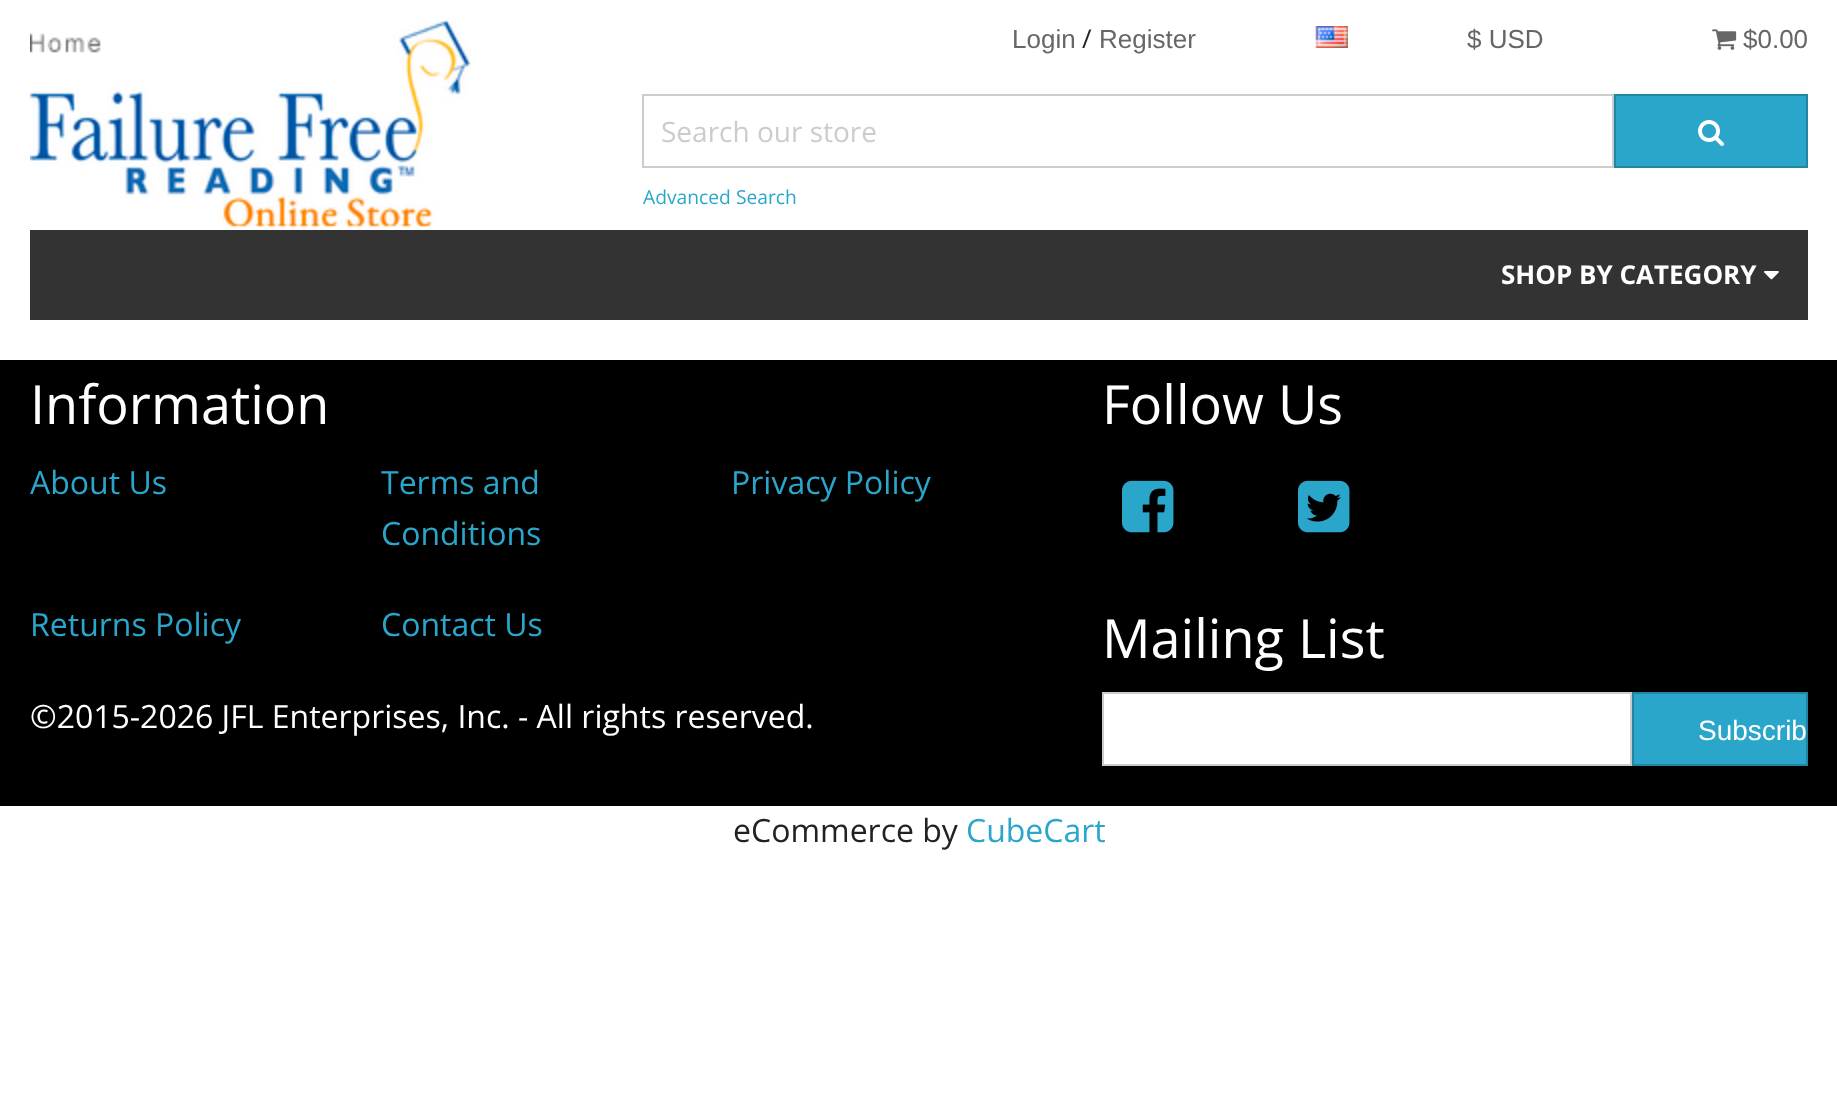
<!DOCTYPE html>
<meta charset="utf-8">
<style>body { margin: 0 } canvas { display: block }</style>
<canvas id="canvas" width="1837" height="1102"></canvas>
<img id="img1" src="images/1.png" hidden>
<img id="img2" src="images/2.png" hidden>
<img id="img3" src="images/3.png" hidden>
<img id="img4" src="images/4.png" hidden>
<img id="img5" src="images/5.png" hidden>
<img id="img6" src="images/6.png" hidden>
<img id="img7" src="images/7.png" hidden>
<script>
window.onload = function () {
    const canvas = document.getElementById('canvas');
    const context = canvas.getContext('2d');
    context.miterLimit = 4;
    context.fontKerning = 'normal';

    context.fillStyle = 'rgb(255, 255, 255)';
    context.fillRect(0, 0, 1837, 1102);
    context.drawImage(document.getElementById('img1'), 30, 20, 441, 207);
    context.drawImage(document.getElementById('img2'), 1315, 26, 33, 22);
    context.drawImage(document.getElementById('img3'), 1712, 29, 25, 21);
    context.strokeStyle = 'rgb(204, 204, 204)';
    context.lineWidth = 2;
    context.strokeRect(643, 95, 970, 72);
    context.fillStyle = 'rgb(43, 166, 203)';
    context.beginPath();
    context.rect(1615, 95, 192, 72);
    context.fill();
    context.strokeStyle = 'rgb(34, 133, 162)';
    context.stroke();
    context.drawImage(document.getElementById('img4'), 1698, 120, 26, 26);
    context.fillStyle = 'rgb(51, 51, 51)';
    context.fillRect(30, 230, 1778, 90);
    context.drawImage(document.getElementById('img5'), 1764, 271, 15, 9);
    context.fillStyle = 'rgb(0, 0, 0)';
    context.fillRect(0, 360, 1837, 446);
    context.drawImage(document.getElementById('img6'), 1122, 480, 52, 53);
    context.drawImage(document.getElementById('img7'), 1298, 480, 52, 53);
    context.fillStyle = 'rgb(255, 255, 255)';
    context.beginPath();
    context.rect(1103, 693, 528, 72);
    context.fill();
    context.strokeStyle = 'rgb(204, 204, 204)';
    context.stroke();
    context.fillStyle = 'rgb(43, 166, 203)';
    context.beginPath();
    context.rect(1633, 693, 174, 72);
    context.fill();
    context.strokeStyle = 'rgb(34, 133, 162)';
    context.stroke();
    context.font = '26px Liberation Sans';
    context.fillStyle = 'rgb(102, 102, 102)';
    context.fillText('Login', 1012, 48);
    context.font = '26px Open Sans';
    context.fillStyle = 'rgb(34, 34, 34)';
    context.fillText('/', 1082, 48);
    context.font = '26px Liberation Sans';
    context.fillStyle = 'rgb(102, 102, 102)';
    context.fillText('Register', 1099, 48);
    context.fillText('$ USD', 1467, 48);
    context.fillText('$0.00', 1743, 48);
    context.font = '28px Open Sans';
    context.fillStyle = 'rgb(204, 204, 204)';
    context.fillText('Search our store', 661, 142);
    context.font = '19.25px Open Sans';
    context.fillStyle = 'rgb(43, 166, 203)';
    context.fillText('Advanced Search', 643, 204);
    context.font = 'bold 26px Open Sans';
    context.fillStyle = 'rgb(255, 255, 255)';
    context.fillText('SHOP BY CATEGORY', 1501, 284);
    context.font = '54px Open Sans';
    context.fillText('Information', 30, 424);
    context.font = '32px Open Sans';
    context.fillStyle = 'rgb(43, 166, 203)';
    context.fillText('About Us', 30, 494);
    context.fillText('Terms and', 381, 494);
    context.fillText('Conditions', 381, 545);
    context.fillText('Privacy Policy', 731, 494);
    context.fillText('Returns Policy', 30, 636);
    context.fillText('Contact Us', 381, 636);
    context.fillStyle = 'rgb(255, 255, 255)';
    context.fillText('©2015-2026 JFL Enterprises, Inc. - All rights reserved.', 30, 728);
    context.font = '54px Open Sans';
    context.fillText('Follow Us', 1102, 424);
    context.fillText('Mailing List', 1102, 658);
    context.font = '28px Liberation Sans';
    context.fillText('Subscrib', 1698, 740);
    context.font = '32px Open Sans';
    context.fillStyle = 'rgb(34, 34, 34)';
    context.fillText('eCommerce by', 733, 842);
    context.fillStyle = 'rgb(43, 166, 203)';
    context.fillText('CubeCart', 966, 842);
};
</script>
